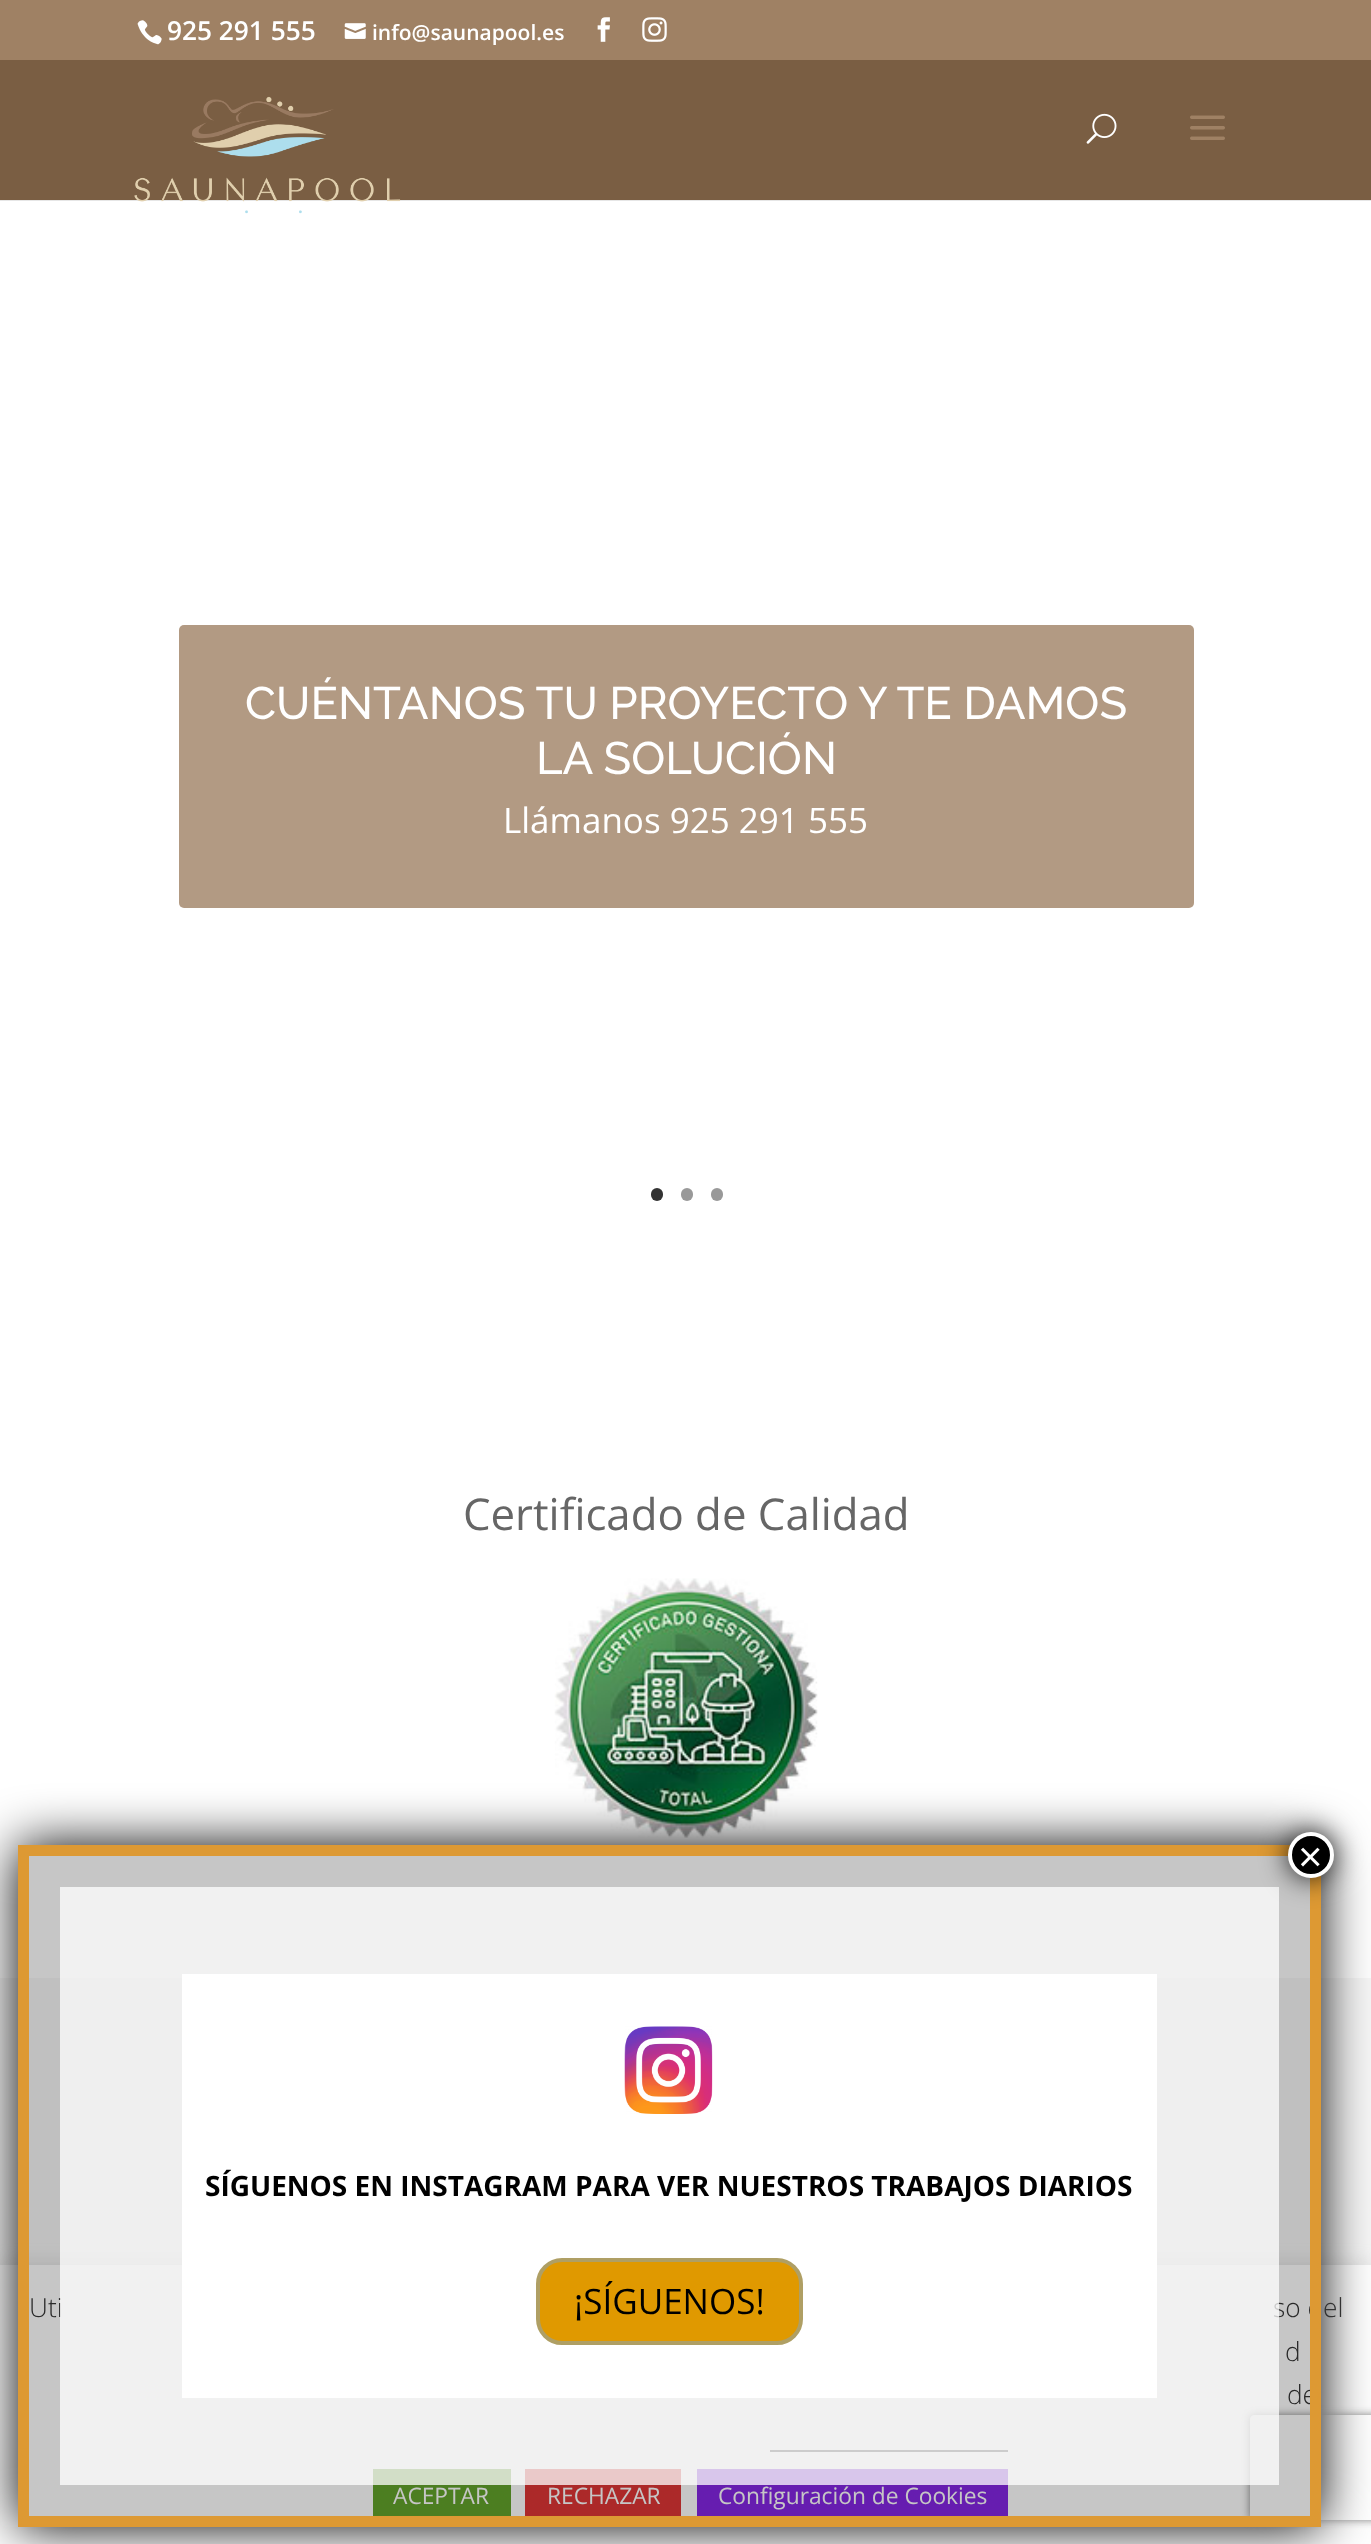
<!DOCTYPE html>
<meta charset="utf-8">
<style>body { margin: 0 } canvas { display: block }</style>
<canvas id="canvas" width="1371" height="2544"></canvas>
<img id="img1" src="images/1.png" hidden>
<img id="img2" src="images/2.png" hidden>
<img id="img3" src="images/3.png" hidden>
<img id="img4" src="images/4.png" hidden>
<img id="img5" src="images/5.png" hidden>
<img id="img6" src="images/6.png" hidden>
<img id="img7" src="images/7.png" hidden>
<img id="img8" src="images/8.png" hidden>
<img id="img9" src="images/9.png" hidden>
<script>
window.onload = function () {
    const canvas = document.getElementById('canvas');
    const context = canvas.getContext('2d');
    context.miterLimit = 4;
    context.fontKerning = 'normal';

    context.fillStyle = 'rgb(255, 255, 255)';
    context.fillRect(0, 0, 1371, 2544);
    context.fillStyle = 'rgb(159, 129, 100)';
    context.fillRect(0, 0, 1371, 60);
    context.drawImage(document.getElementById('img1'), 137, 20, 25, 25);
    context.drawImage(document.getElementById('img2'), 344, 23, 22, 16);
    context.drawImage(document.getElementById('img3'), 597, 17, 13, 25);
    context.drawImage(document.getElementById('img4'), 642, 17, 25, 25);
    context.fillStyle = 'rgb(230, 230, 230)';
    context.fillRect(0, 200, 1371, 1);
    context.fillStyle = 'rgb(122, 94, 67)';
    context.fillRect(0, 60, 1371, 140);
    context.drawImage(document.getElementById('img5'), 134, 96, 267, 118);
    context.drawImage(document.getElementById('img6'), 1086, 113, 31, 31);
    context.drawImage(document.getElementById('img7'), 1190, 115, 35, 25);
    context.fillStyle = 'rgb(178, 154, 131)';
    context.beginPath();
    context.roundRect(179, 625, 1015, 283, 5);
    context.fill();
    context.fillStyle = 'rgb(51, 51, 51)';
    context.beginPath();
    context.roundRect(651, 1188, 12, 13, 6);
    context.fill();
    context.fillStyle = 'rgb(153, 153, 153)';
    context.beginPath();
    context.roundRect(681, 1188, 12, 13, 6);
    context.fill();
    context.beginPath();
    context.roundRect(711, 1188, 12, 13, 6);
    context.fill();
    context.drawImage(document.getElementById('img8'), 554, 1578, 264, 260);
    context.fillStyle = 'rgb(247, 247, 247)';
    context.fillRect(0, 1978, 1371, 287);
    context.fillStyle = 'rgba(172, 171, 171, 0.3)';
    context.filter = 'blur(9px)';
    context.beginPath();
    context.rect(0, 2263, 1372, 280);
    context.fill();
    context.filter = 'none';
    context.fillStyle = 'rgb(255, 255, 255)';
    context.fillRect(0, 2265, 1371, 279);
    context.fillStyle = 'rgb(68, 68, 68)';
    context.fillRect(770, 2450, 238, 2);
    context.fillStyle = 'rgb(97, 162, 41)';
    context.fillRect(373, 2469, 138, 47);
    context.fillStyle = 'rgb(221, 51, 51)';
    context.fillRect(525, 2469, 156, 47);
    context.fillStyle = 'rgb(130, 36, 227)';
    context.fillRect(697, 2469, 311, 47);
    context.save();
    context.beginPath();
    context.moveTo(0, 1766);
    context.lineTo(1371, 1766);
    context.lineTo(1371, 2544);
    context.lineTo(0, 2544);
    context.closePath();
    context.moveTo(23, 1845);
    context.lineTo(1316, 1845);
    context.bezierCurveTo(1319, 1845, 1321, 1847, 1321, 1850);
    context.lineTo(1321, 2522);
    context.bezierCurveTo(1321, 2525, 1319, 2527, 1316, 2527);
    context.lineTo(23, 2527);
    context.bezierCurveTo(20, 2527, 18, 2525, 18, 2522);
    context.lineTo(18, 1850);
    context.bezierCurveTo(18, 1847, 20, 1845, 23, 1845);
    context.closePath();
    context.clip('evenodd');
    context.fillStyle = 'rgb(2, 2, 2)';
    context.filter = 'blur(26px)';
    context.beginPath();
    context.roundRect(18, 1845, 1303, 682, 5);
    context.fill();
    context.filter = 'none';
    context.restore();
    context.save();
    context.beginPath();
    context.moveTo(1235, 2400);
    context.lineTo(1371, 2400);
    context.lineTo(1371, 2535);
    context.lineTo(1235, 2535);
    context.closePath();
    context.moveTo(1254, 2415);
    context.lineTo(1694, 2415);
    context.bezierCurveTo(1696, 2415, 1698, 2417, 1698, 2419);
    context.lineTo(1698, 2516);
    context.bezierCurveTo(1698, 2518, 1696, 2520, 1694, 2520);
    context.lineTo(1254, 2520);
    context.bezierCurveTo(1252, 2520, 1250, 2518, 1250, 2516);
    context.lineTo(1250, 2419);
    context.bezierCurveTo(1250, 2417, 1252, 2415, 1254, 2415);
    context.closePath();
    context.clip('evenodd');
    context.fillStyle = 'rgb(128, 128, 128)';
    context.filter = 'blur(4.5px)';
    context.beginPath();
    context.roundRect(1250, 2415, 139, 105, 4);
    context.fill();
    context.filter = 'none';
    context.restore();
    context.font = '600 26.25px Open Sans';
    context.fillStyle = 'rgb(255, 255, 255)';
    context.fillText('925 291 555', 167, 40);
    context.font = '600 21px Open Sans';
    context.fillText('info@saunapool.es', 372, 40);
    context.font = '500 45.5px Raleway';
    context.fillText('CUÉNTANOS TU PROYECTO Y TE DAMOS', 245, 719);
    context.fillText('LA SOLUCIÓN', 536, 774);
    context.font = '35px Open Sans';
    context.fillText('Llámanos 925 291 555', 503, 833);
    context.font = '43.75px Open Sans';
    context.fillStyle = 'rgb(102, 102, 102)';
    context.fillText('Certificado de Calidad', 463, 1530);
    context.font = '300 26.25px Open Sans';
    context.fillStyle = 'rgb(51, 51, 51)';
    context.fillText('Uti', 29, 2317);
    context.fillText('so del', 1273, 2317);
    context.fillText('d', 1285, 2361);
    context.fillText('de', 1287, 2404);
    context.font = '22.75px Open Sans';
    context.fillStyle = 'rgb(255, 255, 255)';
    context.fillText('ACEPTAR', 393, 2504);
    context.fillText('RECHAZAR', 547, 2504);
    context.fillText('Configuración de Cookies', 718, 2504);
    context.fillStyle = 'rgba(10, 10, 10, 0.23)';
    context.beginPath();
    context.rect(23.5, 1850.5, 1292, 671);
    context.fill();
    context.strokeStyle = 'rgb(221, 153, 51)';
    context.lineWidth = 11;
    context.stroke();
    context.fillStyle = 'rgba(255, 255, 255, 0.75)';
    context.fillRect(60, 1887, 1219, 598);
    context.fillStyle = 'rgba(2, 2, 2, 0.75)';
    context.filter = 'blur(13px)';
    context.beginPath();
    context.roundRect(1286, 1831, 49, 49, 24.5);
    context.fill();
    context.filter = 'none';
    context.fillStyle = 'rgb(0, 0, 0)';
    context.beginPath();
    context.arc(1311, 1855, 21, 0, 2 * Math.PI);
    context.fill();
    context.strokeStyle = 'rgb(255, 255, 255)';
    context.lineWidth = 4;
    context.stroke();
    context.font = '42px Liberation Sans';
    context.fillStyle = 'rgb(255, 255, 255)';
    context.fillText('×', 1298, 1871);
    context.fillRect(182, 1974, 975, 424);
    context.fillStyle = 'rgb(224, 153, 0)';
    context.beginPath();
    context.roundRect(538, 2260, 263, 83, 24);
    context.fill();
    context.strokeStyle = 'rgb(175, 159, 100)';
    context.stroke();
    context.font = '35px Open Sans';
    context.fillStyle = 'rgb(0, 0, 0)';
    context.fillText('¡SÍGUENOS!', 574, 2314);
    context.font = 'bold 28px Open Sans';
    context.fillText('SÍGUENOS EN INSTAGRAM PARA VER NUESTROS TRABAJOS DIARIOS', 205, 2196);
    context.drawImage(document.getElementById('img9'), 624, 2026, 89, 88);
};
</script>
